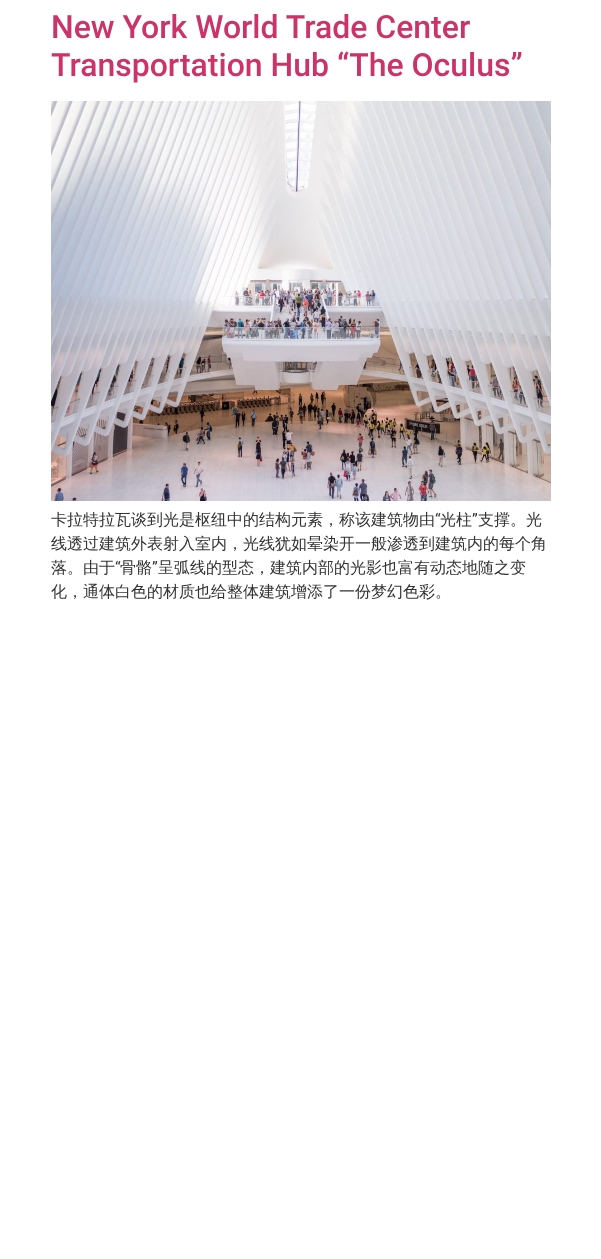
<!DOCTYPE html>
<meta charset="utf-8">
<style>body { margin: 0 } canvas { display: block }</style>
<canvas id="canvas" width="601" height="1259"></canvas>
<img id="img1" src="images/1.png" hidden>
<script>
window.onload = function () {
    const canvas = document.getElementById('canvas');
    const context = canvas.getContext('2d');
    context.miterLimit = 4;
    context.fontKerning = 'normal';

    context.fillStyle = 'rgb(255, 255, 255)';
    context.fillRect(0, 0, 601, 1259);
    context.drawImage(document.getElementById('img1'), 51, 101, 500, 400);
    context.font = '500 32px Roboto';
    context.fillStyle = 'rgb(204, 51, 102)';
    context.fillText('New York World Trade Center', 51, 38);
    context.fillText('Transportation Hub “The Oculus”', 51, 76);
    context.font = '500 16px WenQuanYi Zen Hei';
    context.fillStyle = 'rgb(51, 51, 51)';
    context.fillText('卡拉特拉瓦谈到光是枢纽中的结构元素，称该建筑物由', 51, 525);
    context.font = '16px Roboto';
    context.fillText('“', 435, 525);
    context.font = '500 16px WenQuanYi Zen Hei';
    context.fillText('光柱', 440, 525);
    context.font = '16px Roboto';
    context.fillText('”', 472, 525);
    context.font = '500 16px WenQuanYi Zen Hei';
    context.fillText('支撑。光', 478, 525);
    context.fillText('线透过建筑外表射入室内，光线犹如晕染开一般渗透到建筑内的每个角', 51, 549);
    context.fillText('落。由于', 51, 573);
    context.font = '16px Roboto';
    context.fillText('“', 115, 573);
    context.font = '500 16px WenQuanYi Zen Hei';
    context.fillText('骨骼', 120, 573);
    context.font = '16px Roboto';
    context.fillText('”', 152, 573);
    context.font = '500 16px WenQuanYi Zen Hei';
    context.fillText('呈弧线的型态，建筑内部的光影也富有动态地随之变', 158, 573);
    context.fillText('化，通体白色的材质也给整体建筑增添了一份梦幻色彩。', 51, 597);
};
</script>
